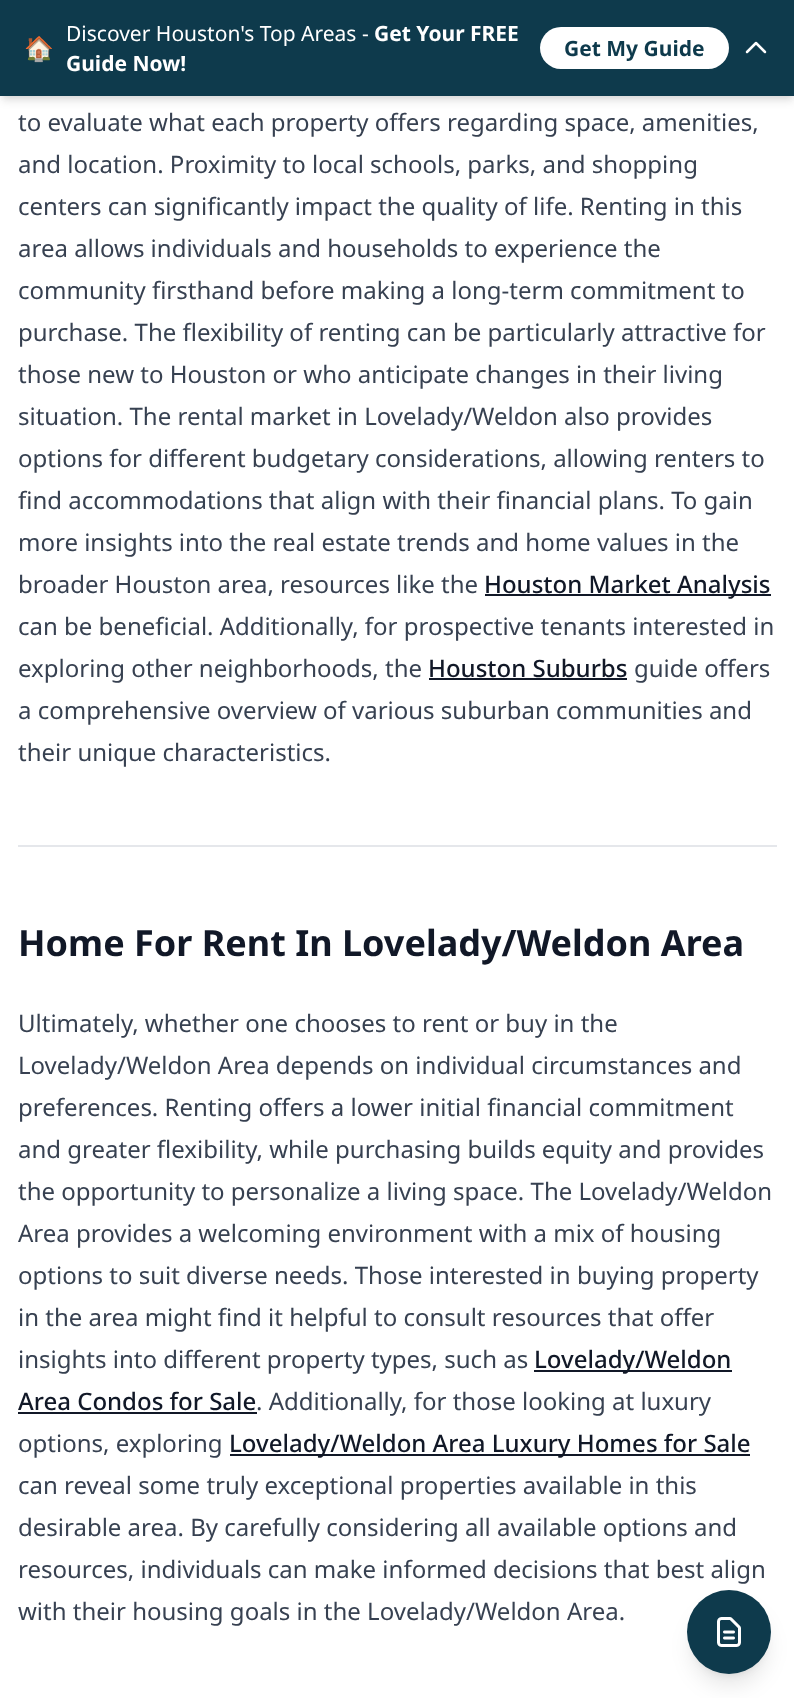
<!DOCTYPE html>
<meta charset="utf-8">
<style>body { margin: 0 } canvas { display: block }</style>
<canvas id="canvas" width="794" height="1698"></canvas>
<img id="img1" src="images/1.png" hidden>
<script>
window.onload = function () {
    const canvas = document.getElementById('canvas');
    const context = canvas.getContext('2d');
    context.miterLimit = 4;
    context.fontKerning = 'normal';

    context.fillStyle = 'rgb(255, 255, 255)';
    context.fillRect(0, 0, 794, 1698);
    context.fillStyle = 'rgba(0, 0, 0, 0.1)';
    context.filter = 'blur(3px)';
    context.beginPath();
    context.rect(3, 6, 789, 90);
    context.fill();
    context.filter = 'none';
    context.filter = 'blur(4.5px)';
    context.beginPath();
    context.rect(2, 8, 792, 93);
    context.fill();
    context.filter = 'none';
    context.fillStyle = 'rgb(14, 58, 76)';
    context.fillRect(0, 0, 794, 96);
    context.fillStyle = 'rgb(255, 255, 255)';
    context.beginPath();
    context.roundRect(540, 27, 189, 42, 21);
    context.fill();
    context.beginPath();
    context.moveTo(747, 52);
    context.lineTo(756, 43);
    context.lineTo(765, 52);
    context.strokeStyle = 'rgb(255, 255, 255)';
    context.lineWidth = 2.5;
    context.lineCap = 'round';
    context.lineJoin = 'round';
    context.stroke();
    context.fillStyle = 'rgba(0, 0, 0, 0.1)';
    context.filter = 'blur(4.5px)';
    context.beginPath();
    context.roundRect(693, 1602, 72, 72, 36);
    context.fill();
    context.filter = 'none';
    context.filter = 'blur(11px)';
    context.beginPath();
    context.roundRect(692, 1610, 75, 75, 37.5);
    context.fill();
    context.filter = 'none';
    context.fillStyle = 'rgb(14, 58, 76)';
    context.beginPath();
    context.arc(729, 1632, 42, 0, 2 * Math.PI);
    context.fill();
    context.drawImage(document.getElementById('img1'), 717, 1617, 24, 30);
    context.fillStyle = 'rgb(17, 24, 39)';
    context.fillRect(485, 594, 286, 2);
    context.fillRect(429, 678, 198, 2);
    context.fillStyle = 'rgb(229, 231, 235)';
    context.fillRect(18, 845, 759, 2);
    context.fillStyle = 'rgb(17, 24, 39)';
    context.fillRect(534, 1370, 198, 2);
    context.fillRect(18, 1412, 239, 2);
    context.fillRect(230, 1454, 520, 2);
    context.font = 'bold 24px Noto Color Emoji';
    context.fillStyle = 'rgb(255, 255, 255)';
    context.fillText('🏠', 24, 57);
    context.font = '21px Noto Sans';
    context.fillText('Discover Houston\'s Top Areas -', 66, 41);
    context.font = 'bold 21px Noto Sans';
    context.fillText('Get Your FREE', 374, 41);
    context.fillText('Guide Now!', 66, 71);
    context.fillStyle = 'rgb(14, 58, 76)';
    context.fillText('Get My Guide', 564, 56);
    context.font = '24px Noto Sans';
    context.fillStyle = 'rgb(55, 65, 81)';
    context.fillText('to evaluate what each property offers regarding space, amenities,', 18, 131);
    context.fillText('and location. Proximity to local schools, parks, and shopping', 18, 173);
    context.fillText('centers can significantly impact the quality of life. Renting in this', 18, 215);
    context.fillText('area allows individuals and households to experience the', 18, 257);
    context.fillText('community firsthand before making a long-term commitment to', 18, 299);
    context.fillText('purchase. The flexibility of renting can be particularly attractive for', 18, 341);
    context.fillText('those new to Houston or who anticipate changes in their living', 18, 383);
    context.fillText('situation. The rental market in Lovelady/Weldon also provides', 18, 425);
    context.fillText('options for different budgetary considerations, allowing renters to', 18, 467);
    context.fillText('find accommodations that align with their financial plans. To gain', 18, 509);
    context.fillText('more insights into the real estate trends and home values in the', 18, 551);
    context.fillText('broader Houston area, resources like the', 18, 593);
    context.font = '500 24px Noto Sans';
    context.fillStyle = 'rgb(17, 24, 39)';
    context.fillText('Houston Market Analysis', 484, 593);
    context.font = '24px Noto Sans';
    context.fillStyle = 'rgb(55, 65, 81)';
    context.fillText('can be beneficial. Additionally, for prospective tenants interested in', 18, 635);
    context.fillText('exploring other neighborhoods, the', 18, 677);
    context.font = '500 24px Noto Sans';
    context.fillStyle = 'rgb(17, 24, 39)';
    context.fillText('Houston Suburbs', 428, 677);
    context.font = '24px Noto Sans';
    context.fillStyle = 'rgb(55, 65, 81)';
    context.fillText('guide offers', 634, 677);
    context.fillText('a comprehensive overview of various suburban communities and', 18, 719);
    context.fillText('their unique characteristics.', 18, 761);
    context.font = 'bold 36px Noto Sans';
    context.fillStyle = 'rgb(17, 24, 39)';
    context.fillText('Home For Rent In Lovelady/Weldon Area', 18, 956);
    context.font = '24px Noto Sans';
    context.fillStyle = 'rgb(55, 65, 81)';
    context.fillText('Ultimately, whether one chooses to rent or buy in the', 18, 1032);
    context.fillText('Lovelady/Weldon Area depends on individual circumstances and', 18, 1074);
    context.fillText('preferences. Renting offers a lower initial financial commitment', 18, 1116);
    context.fillText('and greater flexibility, while purchasing builds equity and provides', 18, 1158);
    context.fillText('the opportunity to personalize a living space. The Lovelady/Weldon', 18, 1200);
    context.fillText('Area provides a welcoming environment with a mix of housing', 18, 1242);
    context.fillText('options to suit diverse needs. Those interested in buying property', 18, 1284);
    context.fillText('in the area might find it helpful to consult resources that offer', 18, 1326);
    context.fillText('insights into different property types, such as', 18, 1368);
    context.font = '500 24px Noto Sans';
    context.fillStyle = 'rgb(17, 24, 39)';
    context.fillText('Lovelady/Weldon', 534, 1368);
    context.fillText('Area Condos for Sale', 18, 1410);
    context.font = '24px Noto Sans';
    context.fillStyle = 'rgb(55, 65, 81)';
    context.fillText('. Additionally, for those looking at luxury', 256, 1410);
    context.fillText('options, exploring', 18, 1452);
    context.font = '500 24px Noto Sans';
    context.fillStyle = 'rgb(17, 24, 39)';
    context.fillText('Lovelady/Weldon Area Luxury Homes for Sale', 229, 1452);
    context.font = '24px Noto Sans';
    context.fillStyle = 'rgb(55, 65, 81)';
    context.fillText('can reveal some truly exceptional properties available in this', 18, 1494);
    context.fillText('desirable area. By carefully considering all available options and', 18, 1536);
    context.fillText('resources, individuals can make informed decisions that best align', 18, 1578);
    context.fillText('with their housing goals in the Lovelady/Weldon Area.', 18, 1620);
};
</script>
